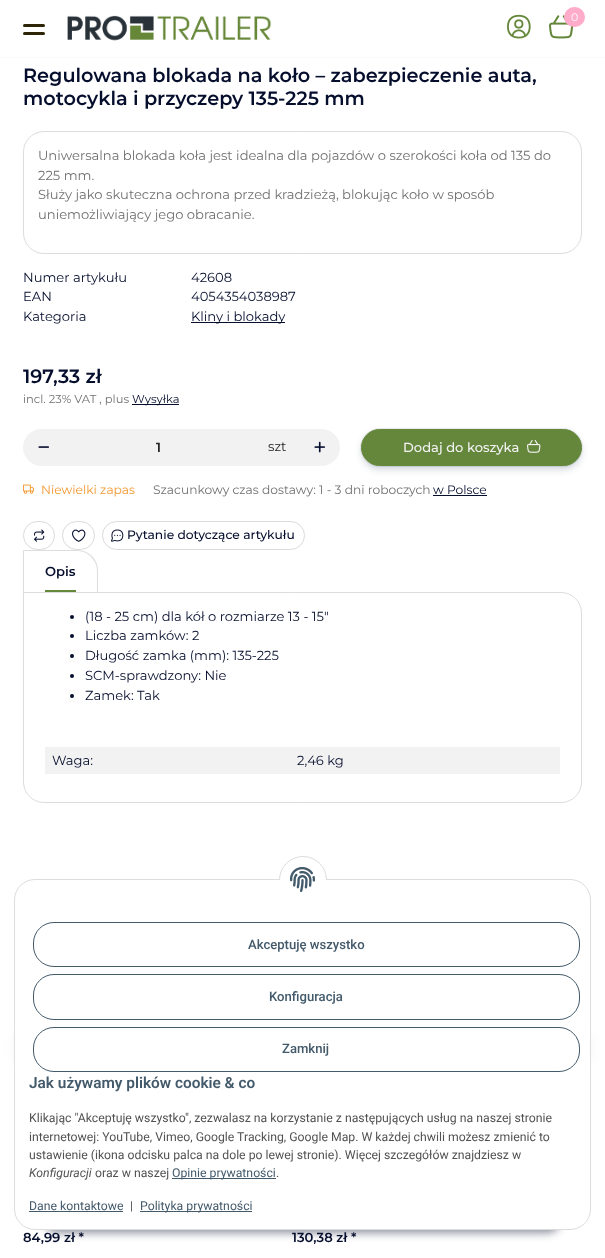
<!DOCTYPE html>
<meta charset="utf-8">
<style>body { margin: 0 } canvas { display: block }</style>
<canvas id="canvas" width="605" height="1258"></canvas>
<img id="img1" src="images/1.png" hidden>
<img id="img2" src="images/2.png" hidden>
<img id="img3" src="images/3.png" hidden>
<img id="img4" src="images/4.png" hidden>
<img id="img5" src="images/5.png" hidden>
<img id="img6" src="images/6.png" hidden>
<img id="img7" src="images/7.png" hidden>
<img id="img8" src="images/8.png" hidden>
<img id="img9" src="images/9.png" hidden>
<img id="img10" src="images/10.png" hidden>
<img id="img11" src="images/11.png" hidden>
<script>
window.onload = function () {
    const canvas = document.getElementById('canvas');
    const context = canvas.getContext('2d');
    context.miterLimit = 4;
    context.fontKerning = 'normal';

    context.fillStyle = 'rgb(255, 255, 255)';
    context.fillRect(0, 0, 605, 1258);
    context.fillStyle = 'rgb(250, 250, 250)';
    context.fillRect(0, 57, 605, 1);
    context.fillStyle = 'rgb(45, 37, 6)';
    context.beginPath();
    context.roundRect(23, 24, 22, 3, 1.5);
    context.fill();
    context.beginPath();
    context.roundRect(23, 32, 22, 3, 1.5);
    context.fill();
    context.drawImage(document.getElementById('img1'), 67, 15, 205, 26);
    context.drawImage(document.getElementById('img2'), 507, 14, 24, 25);
    context.drawImage(document.getElementById('img3'), 549, 15, 25, 24);
    context.fillStyle = 'rgb(255, 172, 202)';
    context.beginPath();
    context.roundRect(564, 7, 21, 20, 10);
    context.fill();
    context.beginPath();
    context.roundRect(23.5, 131.5, 558, 122, 20.5);
    context.strokeStyle = 'rgb(221, 221, 221)';
    context.stroke();
    context.fillStyle = 'rgb(6, 14, 45)';
    context.fillRect(191, 322, 94, 1);
    context.fillRect(132, 404, 47, 1);
    context.fillStyle = 'rgb(242, 242, 242)';
    context.beginPath();
    context.roundRect(23.5, 429.5, 316, 36, 18);
    context.fill();
    context.strokeStyle = 'rgb(242, 242, 242)';
    context.stroke();
    context.drawImage(document.getElementById('img4'), 38, 446, 11, 2);
    context.drawImage(document.getElementById('img5'), 314, 441, 11, 12);
    context.beginPath();
    context.roundRect(360.5, 428.5, 222, 38, 19);
    context.strokeStyle = 'rgb(235, 237, 240)';
    context.stroke();
    context.fillStyle = 'rgba(9, 30, 66, 0.25)';
    context.filter = 'blur(4px)';
    context.beginPath();
    context.roundRect(363, 435, 217, 33, 16.5);
    context.fill();
    context.filter = 'none';
    context.fillStyle = 'rgb(101, 135, 59)';
    context.beginPath();
    context.roundRect(361.5, 429.5, 220, 36, 18);
    context.fill();
    context.strokeStyle = 'rgb(101, 135, 59)';
    context.stroke();
    context.drawImage(document.getElementById('img6'), 527, 440, 14, 13);
    context.drawImage(document.getElementById('img7'), 23, 484, 11, 10);
    context.fillStyle = 'rgb(6, 14, 45)';
    context.fillRect(433, 495, 54, 1);
    context.beginPath();
    context.roundRect(23.5, 521.5, 31, 28, 14);
    context.strokeStyle = 'rgb(218, 218, 218)';
    context.stroke();
    context.drawImage(document.getElementById('img8'), 34, 529, 11, 13);
    context.beginPath();
    context.roundRect(62.5, 521.5, 32, 28, 14);
    context.stroke();
    context.drawImage(document.getElementById('img9'), 72, 529, 14, 13);
    context.beginPath();
    context.roundRect(102.5, 521.5, 202, 28, 14);
    context.stroke();
    context.drawImage(document.getElementById('img10'), 111, 529, 13, 13);
    context.fillStyle = 'rgb(221, 221, 221)';
    context.beginPath();
    context.moveTo(23, 550);
    context.lineTo(24, 551);
    context.lineTo(77, 551);
    context.bezierCurveTo(82, 551, 88, 553, 91, 557);
    context.lineTo(92, 556);
    context.bezierCurveTo(88, 552, 83, 550, 77, 550);
    context.closePath();
    context.fill();
    context.beginPath();
    context.moveTo(98, 593);
    context.lineTo(98, 571);
    context.bezierCurveTo(98, 565, 96, 560, 92, 556);
    context.lineTo(91, 557);
    context.bezierCurveTo(95, 560.5, 97, 565.5, 97, 571);
    context.lineTo(97, 592);
    context.closePath();
    context.fill();
    context.beginPath();
    context.moveTo(23, 550);
    context.lineTo(23, 593);
    context.lineTo(24, 592);
    context.lineTo(24, 551);
    context.closePath();
    context.fill();
    context.fillStyle = 'rgb(101, 135, 59)';
    context.fillRect(45, 590, 31, 2);
    context.beginPath();
    context.roundRect(23.5, 592.5, 558, 210, [0, 20.5, 20.5, 20.5]);
    context.strokeStyle = 'rgb(221, 221, 221)';
    context.stroke();
    context.fillStyle = 'rgb(6, 14, 45)';
    context.beginPath();
    context.arc(72, 617, 2, 0, 2 * Math.PI);
    context.fill();
    context.beginPath();
    context.arc(72, 636, 2, 0, 2 * Math.PI);
    context.fill();
    context.beginPath();
    context.arc(72, 656, 2, 0, 2 * Math.PI);
    context.fill();
    context.beginPath();
    context.arc(72, 676, 2, 0, 2 * Math.PI);
    context.fill();
    context.beginPath();
    context.arc(72, 696, 2, 0, 2 * Math.PI);
    context.fill();
    context.fillStyle = 'rgb(242, 242, 242)';
    context.fillRect(45, 747, 515, 27);
    context.fillStyle = 'rgba(6, 14, 45, 0.07)';
    context.filter = 'blur(7px)';
    context.beginPath();
    context.roundRect(16, 1028, 39, 40, 19.5);
    context.fill();
    context.filter = 'none';
    context.filter = 'blur(7px)';
    context.beginPath();
    context.roundRect(550, 1028, 39, 40, 19.5);
    context.fill();
    context.filter = 'none';
    context.fillStyle = 'rgba(6, 14, 45, 0.45)';
    context.filter = 'blur(4.5px)';
    context.beginPath();
    context.roundRect(44, 1205, 517, 28, 14);
    context.fill();
    context.filter = 'none';
    context.fillStyle = 'rgb(255, 255, 255)';
    context.beginPath();
    context.roundRect(14.5, 879.5, 576, 350, 20.5);
    context.fill();
    context.stroke();
    context.beginPath();
    context.arc(303, 880, 23.5, 0, 2 * Math.PI);
    context.fill();
    context.stroke();
    context.fillRect(279, 880, 48, 24);
    context.drawImage(document.getElementById('img11'), 290, 867, 25, 25);
    context.beginPath();
    context.roundRect(33.5, 922.5, 546, 44, 20.5);
    context.strokeStyle = 'rgb(67, 90, 107)';
    context.stroke();
    context.beginPath();
    context.roundRect(33.5, 974.5, 546, 45, 20.5);
    context.stroke();
    context.beginPath();
    context.roundRect(33.5, 1027.5, 546, 44, 20.5);
    context.stroke();
    context.fillStyle = 'rgb(67, 90, 107)';
    context.fillRect(172, 1178, 104, 1);
    context.fillRect(29, 1211, 94, 1);
    context.fillRect(140, 1211, 112, 1);
    context.font = '11px Montserrat';
    context.fillStyle = 'rgb(255, 255, 255)';
    context.fillText('0', 571, 21);
    context.font = '600 19.25px Montserrat';
    context.fillStyle = 'rgb(6, 14, 45)';
    context.fillText('Regulowana blokada na koło – zabezpieczenie auta,', 23, 82);
    context.fillText('motocykla i przyczepy 135-225 mm', 23, 105);
    context.font = '13.1px Montserrat';
    context.fillStyle = 'rgb(112, 112, 112)';
    context.fillText('Uniwersalna blokada koła jest idealna dla pojazdów o szerokości koła od 135 do', 38, 160);
    context.fillText('225 mm.', 38, 180);
    context.fillText('Służy jako skuteczna ochrona przed kradzieżą, blokując koło w sposób', 38, 199);
    context.fillText('uniemożliwiający jego obracanie.', 38, 219);
    context.fillStyle = 'rgb(6, 14, 45)';
    context.fillText('Numer artykułu', 23, 282);
    context.fillText('42608', 191, 282);
    context.fillText('EAN', 23, 301);
    context.fillText('4054354038987', 191, 301);
    context.fillText('Kategoria', 23, 321);
    context.fillText('Kliny i blokady', 191, 321);
    context.font = '600 19.25px Montserrat';
    context.fillText('197,33 zł', 23, 383);
    context.font = '11.5px Montserrat';
    context.fillStyle = 'rgb(112, 112, 112)';
    context.fillText('incl. 23% VAT , plus', 23, 403);
    context.fillStyle = 'rgb(6, 14, 45)';
    context.fillText('Wysyłka', 132, 403);
    context.font = '600 13.1px Montserrat';
    context.fillStyle = 'rgb(32, 32, 32)';
    context.fillText('1', 156, 452);
    context.font = '13.1px Montserrat';
    context.fillText('szt', 268, 451);
    context.font = '500 13.1px Montserrat';
    context.fillStyle = 'rgb(242, 242, 242)';
    context.fillText('Dodaj do koszyka', 403, 452);
    context.font = '12.25px Montserrat';
    context.fillStyle = 'rgb(243, 153, 50)';
    context.fillText('Niewielki zapas', 41, 494);
    context.fillStyle = 'rgb(112, 112, 112)';
    context.fillText('Szacunkowy czas dostawy: 1 - 3 dni roboczych', 153, 494);
    context.fillStyle = 'rgb(6, 14, 45)';
    context.fillText('w Polsce', 433, 494);
    context.font = '500 12.25px Montserrat';
    context.fillText('Pytanie dotyczące artykułu', 127, 539);
    context.font = '600 13.1px Montserrat';
    context.fillText('Opis', 45, 576);
    context.font = '13.1px Montserrat';
    context.fillText('(18 - 25 cm) dla kół o rozmiarze 13 - 15"', 85, 621);
    context.fillText('Liczba zamków: 2', 85, 640);
    context.fillText('Długość zamka (mm): 135-225', 85, 660);
    context.fillText('SCM-sprawdzony: Nie', 85, 680);
    context.fillText('Zamek: Tak', 85, 700);
    context.fillText('Waga:', 52, 765);
    context.fillText('2,46 kg', 297, 765);
    context.font = '600 13.1px Montserrat';
    context.fillText('84,99 zł *', 23, 1242);
    context.fillText('130,38 zł *', 292, 1242);
    context.font = '500 13.1px Roboto';
    context.fillStyle = 'rgb(67, 90, 107)';
    context.fillText('Akceptuję wszystko', 248, 949);
    context.fillText('Konfiguracja', 269, 1001);
    context.fillText('Zamknij', 282, 1053);
    context.font = '600 15.4px Roboto';
    context.fillText('Jak używamy plików cookie & co', 29, 1088);
    context.font = '12.25px Roboto';
    context.fillStyle = 'rgb(82, 82, 82)';
    context.fillText('Klikając "Akceptuję wszystko", zezwalasz na korzystanie z następujących usług na naszej stronie', 29, 1122);
    context.fillText('internetowej: YouTube, Vimeo, Google Tracking, Google Map. W każdej chwili możesz zmienić to', 29, 1141);
    context.fillText('ustawienie (ikona odcisku palca na dole po lewej stronie). Więcej szczegółów znajdziesz w', 29, 1159);
    context.font = 'italic 12.25px Roboto';
    context.fillText('Konfiguracji', 29, 1177);
    context.font = '12.25px Roboto';
    context.fillText('oraz w naszej', 95, 1177);
    context.fillStyle = 'rgb(67, 90, 107)';
    context.fillText('Opinie prywatności', 172, 1177);
    context.fillStyle = 'rgb(82, 82, 82)';
    context.fillText('.', 276, 1177);
    context.fillStyle = 'rgb(67, 90, 107)';
    context.fillText('Dane kontaktowe', 29, 1210);
    context.fillStyle = 'rgb(82, 82, 82)';
    context.fillText('|', 130, 1210);
    context.fillStyle = 'rgb(67, 90, 107)';
    context.fillText('Polityka prywatności', 140, 1210);
};
</script>
